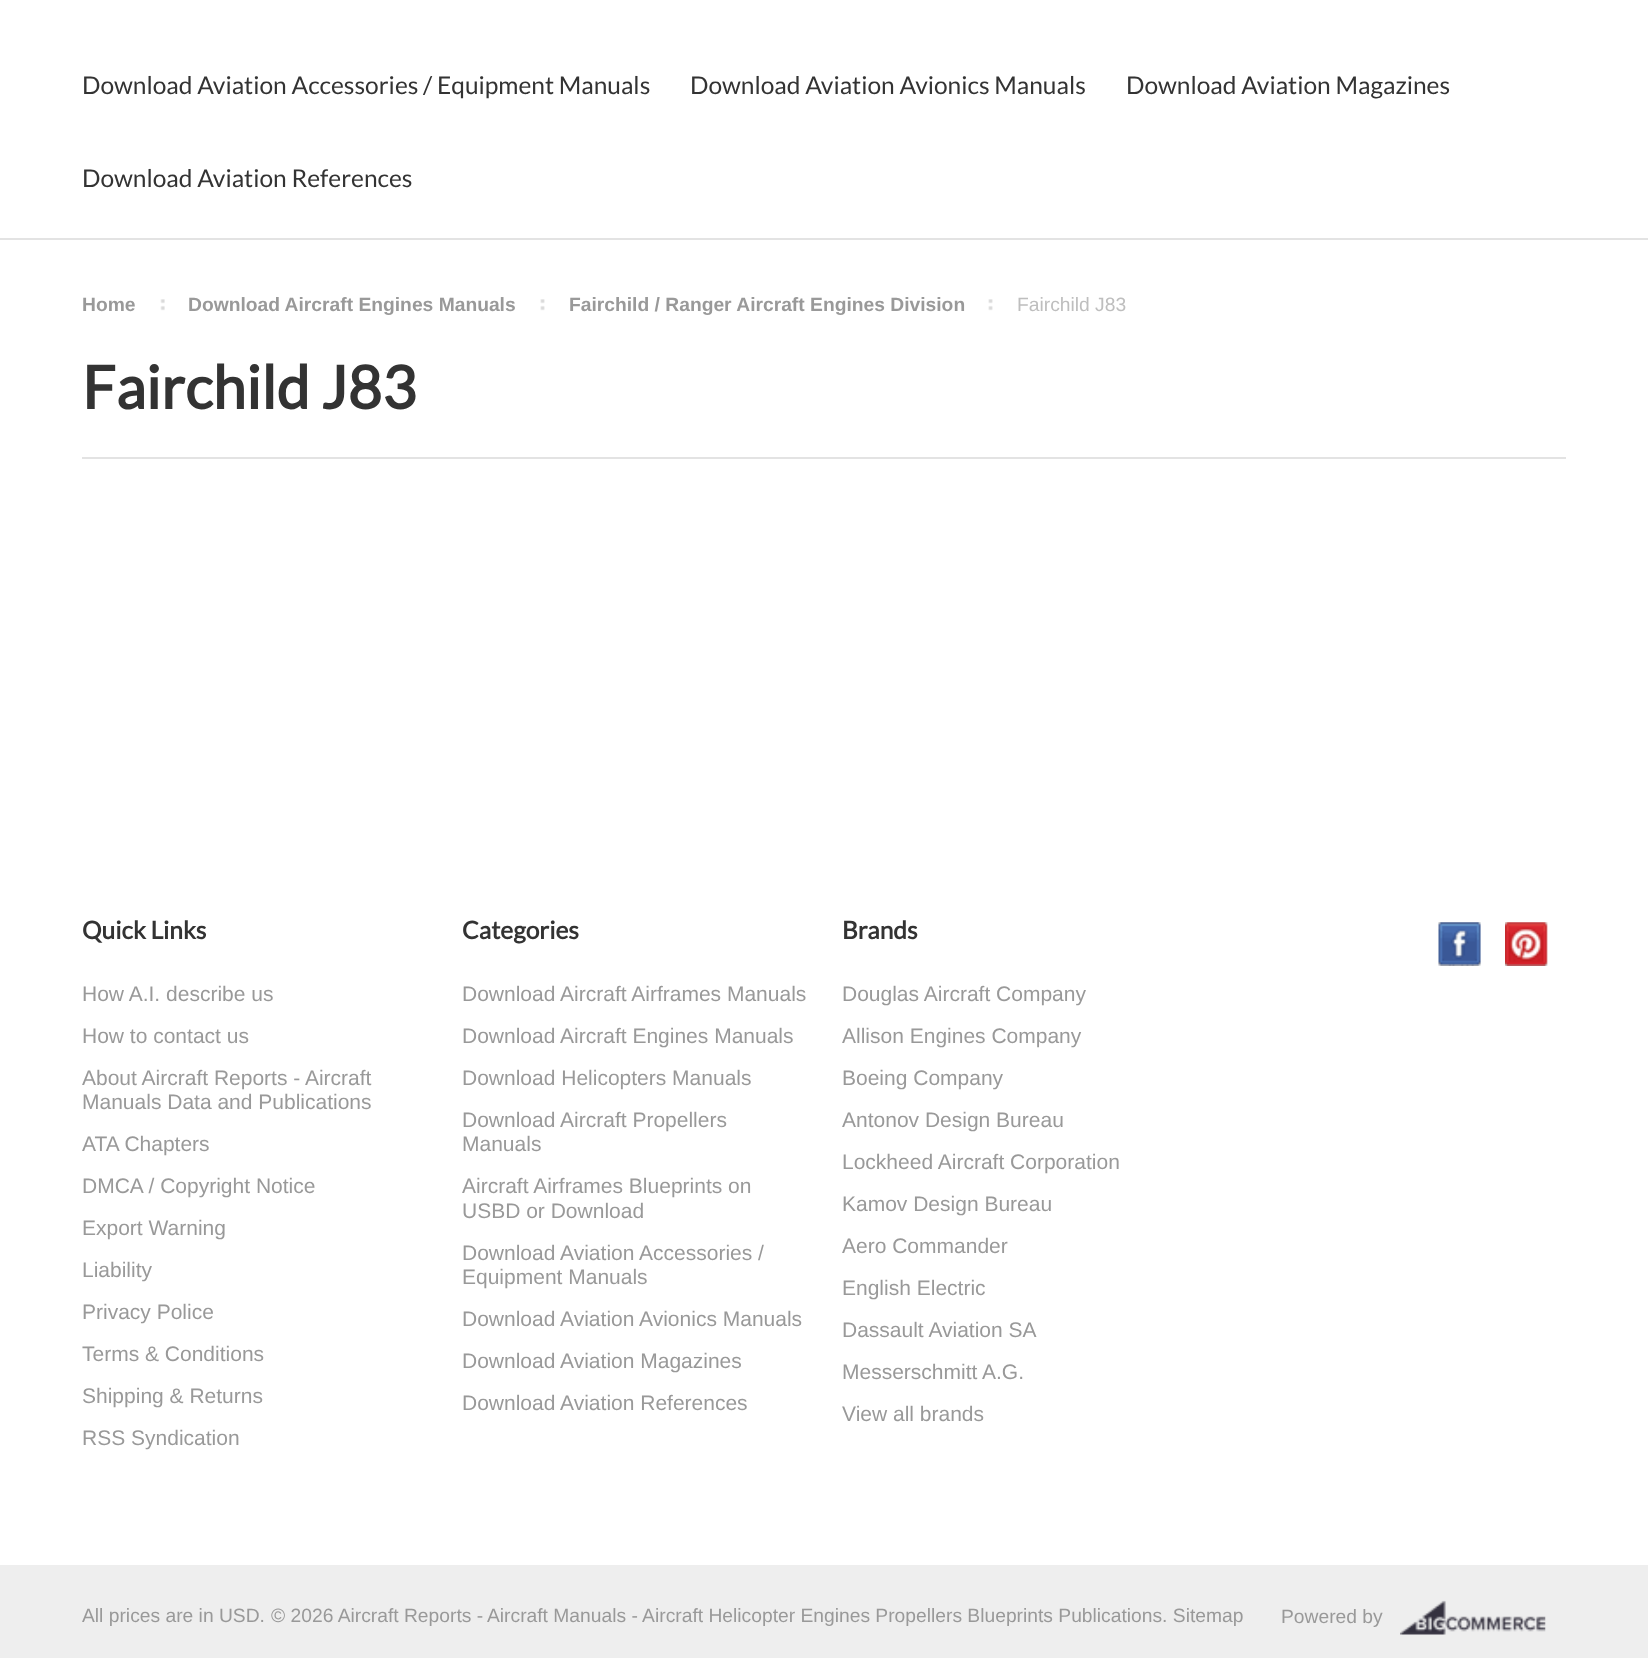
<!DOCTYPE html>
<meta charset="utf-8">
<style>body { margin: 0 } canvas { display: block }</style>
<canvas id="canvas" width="1648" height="1658"></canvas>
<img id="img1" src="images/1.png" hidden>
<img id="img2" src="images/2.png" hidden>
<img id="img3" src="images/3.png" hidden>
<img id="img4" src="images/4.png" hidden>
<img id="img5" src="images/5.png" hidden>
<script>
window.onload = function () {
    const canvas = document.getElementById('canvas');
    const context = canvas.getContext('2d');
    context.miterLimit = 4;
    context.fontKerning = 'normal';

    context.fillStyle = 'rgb(255, 255, 255)';
    context.fillRect(0, 0, 1648, 1658);
    context.fillStyle = 'rgb(227, 227, 227)';
    context.fillRect(0, 238, 1648, 2);
    context.drawImage(document.getElementById('img1'), 160, 299, 5, 12);
    context.drawImage(document.getElementById('img2'), 540, 299, 5, 12);
    context.drawImage(document.getElementById('img2'), 988, 299, 5, 12);
    context.fillRect(82, 457, 1484, 2);
    context.drawImage(document.getElementById('img3'), 1438, 922, 43, 44);
    context.drawImage(document.getElementById('img4'), 1505, 922, 43, 44);
    context.fillStyle = 'rgb(238, 238, 238)';
    context.fillRect(0, 1565, 1648, 93);
    context.drawImage(document.getElementById('img5'), 1400, 1600, 146, 35);
    context.font = '24.5px Lato';
    context.fillStyle = 'rgb(51, 51, 51)';
    context.fillText('Download Aviation Accessories / Equipment Manuals', 82, 94);
    context.fillText('Download Aviation Avionics Manuals', 690, 94);
    context.fillText('Download Aviation Magazines', 1126, 94);
    context.fillText('Download Aviation References', 82, 187);
    context.font = 'bold 19.25px Liberation Sans';
    context.fillStyle = 'rgb(153, 153, 153)';
    context.fillText('Home', 82, 311);
    context.fillText('Download Aircraft Engines Manuals', 188, 311);
    context.fillText('Fairchild / Ranger Aircraft Engines Division', 569, 311);
    context.font = '19.25px Liberation Sans';
    context.fillStyle = 'rgb(190, 190, 190)';
    context.fillText('Fairchild J83', 1017, 311);
    context.font = 'bold 59.5px Lato';
    context.fillStyle = 'rgb(51, 51, 51)';
    context.fillText('Fairchild J83', 82, 409);
    context.font = 'bold 24.5px Lato';
    context.fillText('Quick Links', 82, 939);
    context.font = '21px Liberation Sans';
    context.fillStyle = 'rgb(153, 153, 153)';
    context.fillText('How A.I. describe us', 82, 1001);
    context.fillText('How to contact us', 82, 1043);
    context.fillText('About Aircraft Reports - Aircraft', 82, 1085);
    context.fillText('Manuals Data and Publications', 82, 1109);
    context.fillText('ATA Chapters', 82, 1151);
    context.fillText('DMCA / Copyright Notice', 82, 1193);
    context.fillText('Export Warning', 82, 1235);
    context.fillText('Liability', 82, 1277);
    context.fillText('Privacy Police', 82, 1319);
    context.fillText('Terms & Conditions', 82, 1361);
    context.fillText('Shipping & Returns', 82, 1403);
    context.fillText('RSS Syndication', 82, 1445);
    context.font = 'bold 24.5px Lato';
    context.fillStyle = 'rgb(51, 51, 51)';
    context.fillText('Categories', 462, 939);
    context.font = '21px Liberation Sans';
    context.fillStyle = 'rgb(153, 153, 153)';
    context.fillText('Download Aircraft Airframes Manuals', 462, 1001);
    context.fillText('Download Aircraft Engines Manuals', 462, 1043);
    context.fillText('Download Helicopters Manuals', 462, 1085);
    context.fillText('Download Aircraft Propellers', 462, 1127);
    context.fillText('Manuals', 462, 1151);
    context.fillText('Aircraft Airframes Blueprints on', 462, 1193);
    context.fillText('USBD or Download', 462, 1218);
    context.fillText('Download Aviation Accessories /', 462, 1260);
    context.fillText('Equipment Manuals', 462, 1284);
    context.fillText('Download Aviation Avionics Manuals', 462, 1326);
    context.fillText('Download Aviation Magazines', 462, 1368);
    context.fillText('Download Aviation References', 462, 1410);
    context.font = 'bold 24.5px Lato';
    context.fillStyle = 'rgb(51, 51, 51)';
    context.fillText('Brands', 842, 939);
    context.font = '21px Liberation Sans';
    context.fillStyle = 'rgb(153, 153, 153)';
    context.fillText('Douglas Aircraft Company', 842, 1001);
    context.fillText('Allison Engines Company', 842, 1043);
    context.fillText('Boeing Company', 842, 1085);
    context.fillText('Antonov Design Bureau', 842, 1127);
    context.fillText('Lockheed Aircraft Corporation', 842, 1169);
    context.fillText('Kamov Design Bureau', 842, 1211);
    context.fillText('Aero Commander', 842, 1253);
    context.fillText('English Electric', 842, 1295);
    context.fillText('Dassault Aviation SA', 842, 1337);
    context.fillText('Messerschmitt A.G.', 842, 1379);
    context.fillText('View all brands', 842, 1421);
    context.font = '19.25px Liberation Sans';
    context.fillText('All prices are in USD.', 82, 1622);
    context.fillText('© 2026 Aircraft Reports -', 271, 1622);
    context.fillText('Aircraft Manuals - Aircraft Helicopter Engines Propellers Blueprints Publications. Sitemap', 487, 1622);
    context.fillText('Powered by', 1281, 1623);
};
</script>
